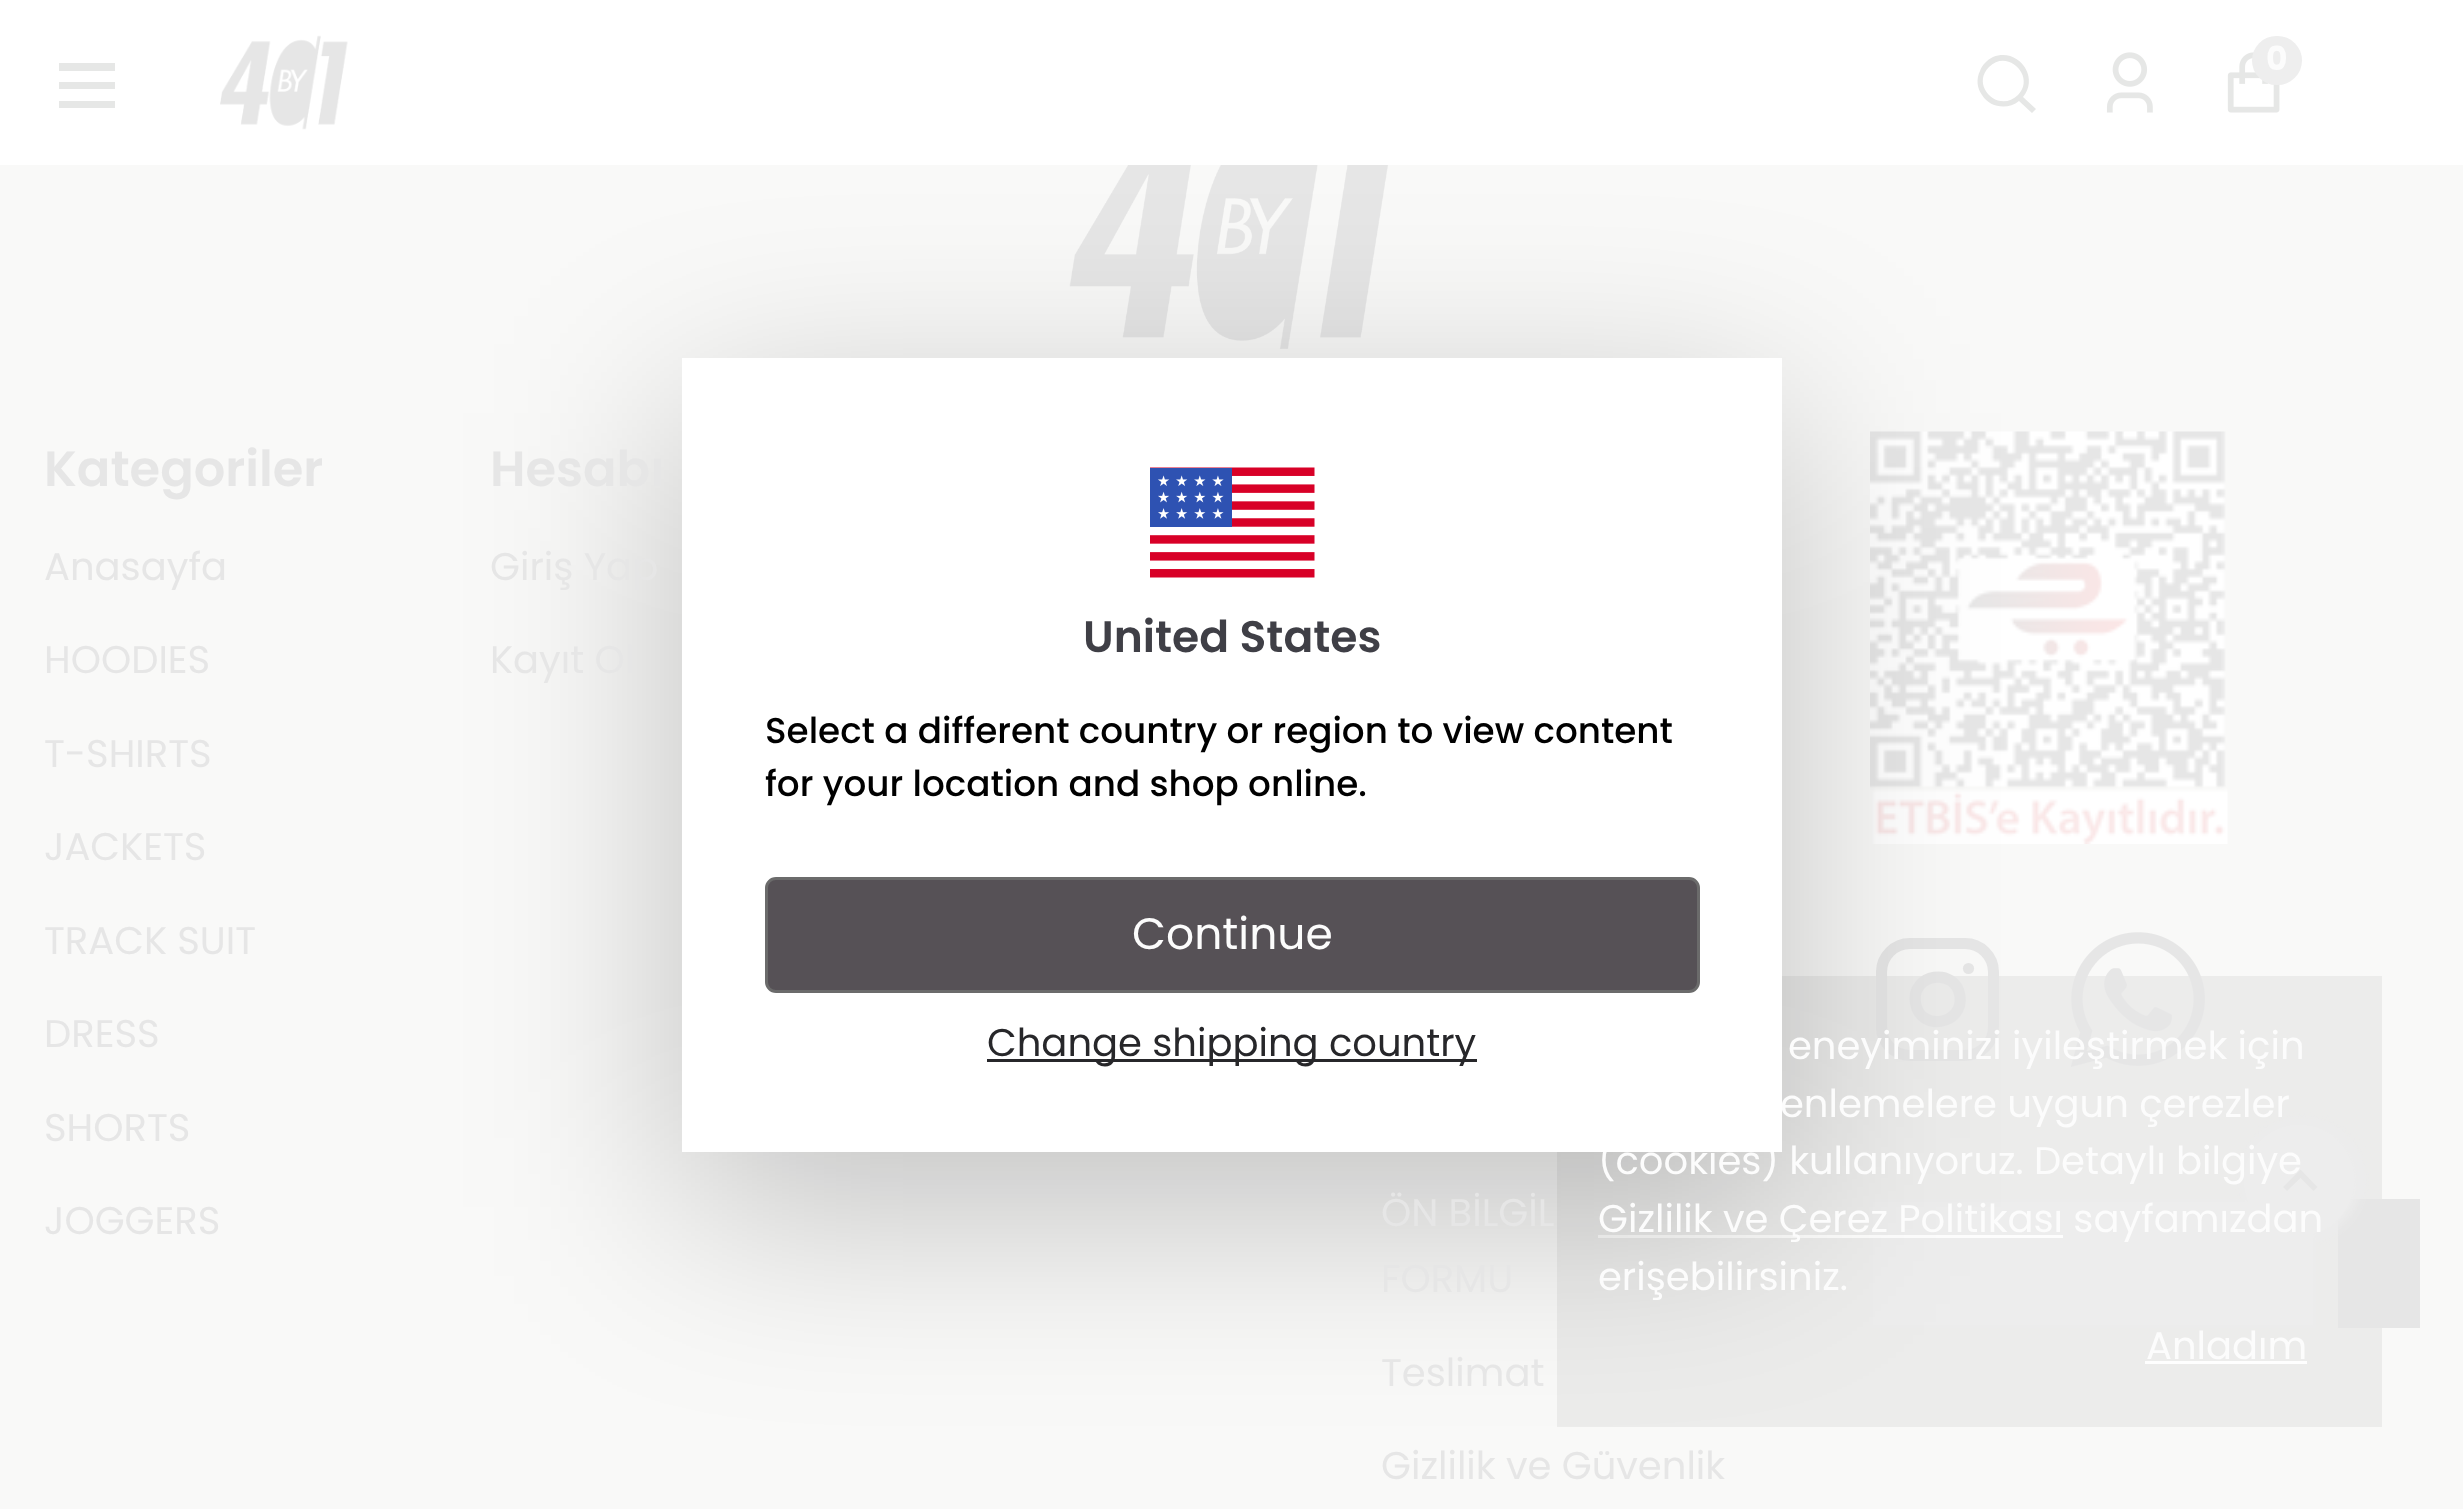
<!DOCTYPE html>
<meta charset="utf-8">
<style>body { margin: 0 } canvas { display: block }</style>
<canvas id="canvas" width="2463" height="1509"></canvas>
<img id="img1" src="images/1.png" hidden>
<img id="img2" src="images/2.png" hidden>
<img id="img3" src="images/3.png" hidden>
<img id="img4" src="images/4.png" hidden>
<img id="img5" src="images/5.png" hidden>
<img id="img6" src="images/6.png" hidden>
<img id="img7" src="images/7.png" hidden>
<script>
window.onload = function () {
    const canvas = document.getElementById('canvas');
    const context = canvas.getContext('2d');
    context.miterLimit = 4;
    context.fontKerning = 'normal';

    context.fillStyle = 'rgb(249, 249, 248)';
    context.fillRect(0, 0, 2463, 1509);
    context.drawImage(document.getElementById('img1'), 1069, 165, 320, 184);
    context.drawImage(document.getElementById('img2'), 1870, 431, 358, 413);
    context.beginPath();
    context.roundRect(1881.5, 943.5, 112, 112, 28.5);
    context.strokeStyle = 'rgb(230, 230, 230)';
    context.lineWidth = 11;
    context.stroke();
    context.beginPath();
    context.moveTo(1960, 996);
    context.bezierCurveTo(1964, 1025, 1920, 1032, 1915.5, 1003);
    context.bezierCurveTo(1910.5, 973.5, 1955.5, 966.5, 1960, 996);
    context.closePath();
    context.lineWidth = 11.2;
    context.lineCap = 'round';
    context.lineJoin = 'round';
    context.stroke();
    context.beginPath();
    context.moveTo(1968.5, 968.5);
    context.lineTo(1968.5, 968.5);
    context.stroke();
    context.drawImage(document.getElementById('img3'), 2071, 932, 134, 135);
    context.fillStyle = 'rgb(255, 255, 255)';
    context.beginPath();
    context.rect(1871.5, 1200.5, 443, 126);
    context.fill();
    context.strokeStyle = 'rgb(252, 252, 252)';
    context.lineWidth = 3;
    context.lineJoin = 'miter';
    context.stroke();
    context.fillStyle = 'rgb(230, 230, 230)';
    context.fillRect(2338, 1199, 82, 129);
    context.fillStyle = 'rgb(255, 255, 255)';
    context.fillRect(0, 0, 2463, 165);
    context.drawImage(document.getElementById('img4'), 220, 35, 128, 95);
    context.fillStyle = 'rgb(230, 231, 230)';
    context.beginPath();
    context.moveTo(2023, 97);
    context.lineTo(2036, 109);
    context.lineTo(2032, 113);
    context.lineTo(2019, 101);
    context.bezierCurveTo(2008, 110, 1990, 108, 1982, 95);
    context.bezierCurveTo(1977, 88, 1976, 79, 1980, 71);
    context.bezierCurveTo(1982, 65, 1987, 60, 1993, 57);
    context.bezierCurveTo(2018, 47, 2040, 77, 2023, 97);
    context.closePath();
    context.moveTo(2018, 95);
    context.bezierCurveTo(2036, 77, 2008, 48, 1989, 67);
    context.bezierCurveTo(1970, 86, 1999, 114, 2018, 95);
    context.closePath();
    context.fill();
    context.drawImage(document.getElementById('img5'), 2106, 52, 47, 61);
    context.drawImage(document.getElementById('img6'), 2227, 52, 53, 61);
    context.fillStyle = 'rgb(238, 238, 238)';
    context.beginPath();
    context.roundRect(2252, 36, 50, 49, 24.5);
    context.fill();
    context.fillStyle = 'rgb(230, 231, 230)';
    context.beginPath();
    context.moveTo(115, 63);
    context.lineTo(115, 71);
    context.lineTo(59, 71);
    context.lineTo(59, 63);
    context.closePath();
    context.moveTo(59, 89);
    context.lineTo(115, 89);
    context.lineTo(115, 82);
    context.lineTo(59, 82);
    context.closePath();
    context.moveTo(59, 108);
    context.lineTo(115, 108);
    context.lineTo(115, 101);
    context.lineTo(59, 101);
    context.closePath();
    context.fill();
    context.fillStyle = 'rgb(253, 253, 253)';
    context.filter = 'blur(5.5px)';
    context.beginPath();
    context.roundRect(2244, 1122, 116, 116, 58);
    context.fill();
    context.filter = 'none';
    context.fillStyle = 'rgb(255, 255, 255)';
    context.beginPath();
    context.arc(2299, 1180, 55, 0, 2 * Math.PI);
    context.fill();
    context.fillStyle = 'rgb(230, 230, 230)';
    context.beginPath();
    context.moveTo(2287, 1191);
    context.lineTo(2300.5, 1178);
    context.lineTo(2313.5, 1191);
    context.lineTo(2317.5, 1187);
    context.lineTo(2300.5, 1169.5);
    context.lineTo(2283, 1187);
    context.closePath();
    context.fill();
    context.fillStyle = 'rgba(230, 230, 230, 0.73)';
    context.fillRect(1557, 976, 825, 451);
    context.fillStyle = 'rgba(255, 255, 255, 0.86)';
    context.fillRect(1598, 1235, 465, 3);
    context.fillStyle = 'rgb(254, 254, 254)';
    context.fillRect(2145, 1361, 162, 3);
    context.fillStyle = 'rgba(0, 0, 0, 0.23)';
    context.filter = 'blur(103px)';
    context.beginPath();
    context.rect(682, 413, 1100, 794);
    context.fill();
    context.filter = 'none';
    context.font = '600 49.5px Poppins';
    context.fillStyle = 'rgb(230, 230, 230)';
    context.fillText('Kategoriler', 44, 486);
    context.font = '38.5px Poppins';
    context.fillText('Anasayfa', 44, 580);
    context.fillText('HOODIES', 44, 673);
    context.fillText('T-SHIRTS', 44, 767);
    context.fillText('JACKETS', 44, 860);
    context.fillText('TRACK SUIT', 44, 954);
    context.fillText('DRESS', 44, 1047);
    context.fillText('SHORTS', 44, 1141);
    context.fillText('JOGGERS', 44, 1234);
    context.font = '600 49.5px Poppins';
    context.fillText('Hesabı', 490, 486);
    context.font = '38.5px Poppins';
    context.fillText('Giriş Yap', 490, 580);
    context.fillText('Kayıt Ol', 490, 673);
    context.fillText('ÖN BİLGİL', 1381, 1226);
    context.fillText('FORMU', 1381, 1292);
    context.fillText('Teslimat', 1381, 1386);
    context.fillText('Gizlilik ve Güvenlik', 1381, 1479);
    context.font = 'bold 33px Poppins';
    context.fillStyle = 'rgb(252, 252, 252)';
    context.fillText('0', 2266, 70);
    context.font = '38.5px Poppins';
    context.fillText('eneyiminizi iyileştirmek için', 1788, 1059);
    context.fillText('enlemelere uygun çerezler', 1780, 1117);
    context.fillText('(cookies) kullanıyoruz. Detaylı bilgiye', 1598, 1174);
    context.fillText('Gizlilik ve Çerez Politikası sayfamızdan', 1598, 1232);
    context.fillText('erişebilirsiniz.', 1598, 1290);
    context.fillText('Anladım', 2146, 1359);
    context.fillStyle = 'rgb(255, 255, 255)';
    context.fillRect(682, 358, 1100, 794);
    context.drawImage(document.getElementById('img7'), 1150, 467, 165, 111);
    context.font = '600 44px Poppins';
    context.fillStyle = 'rgb(63, 63, 70)';
    context.fillText('United States', 1083, 652);
    context.font = '500 35.75px Poppins';
    context.fillStyle = 'rgb(0, 0, 0)';
    context.fillText('Select a different country or region to view content', 765, 743);
    context.fillText('for your location and shop online.', 765, 796);
    context.fillStyle = 'rgb(86, 81, 86)';
    context.beginPath();
    context.roundRect(766.5, 878.5, 932, 113, 9.5);
    context.fill();
    context.strokeStyle = 'rgb(107, 107, 107)';
    context.stroke();
    context.font = '44px Poppins';
    context.fillStyle = 'rgb(252, 252, 252)';
    context.fillText('Continue', 1132, 949);
    context.fillStyle = 'rgb(39, 39, 42)';
    context.fillRect(987, 1059, 490, 3);
    context.font = '38.5px Poppins';
    context.fillText('Change shipping country', 987, 1056);
};
</script>
